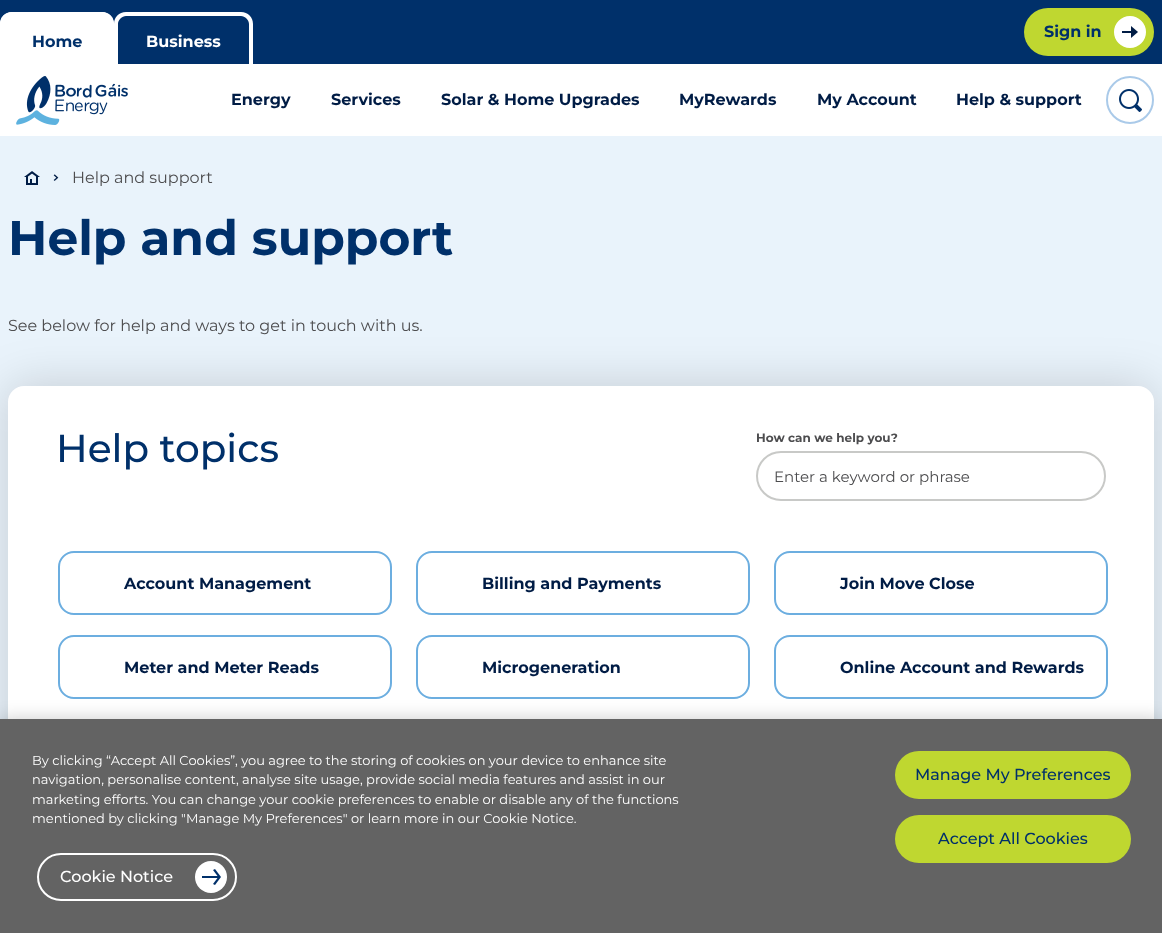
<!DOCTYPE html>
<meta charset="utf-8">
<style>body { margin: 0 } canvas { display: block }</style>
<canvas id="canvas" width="1162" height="933"></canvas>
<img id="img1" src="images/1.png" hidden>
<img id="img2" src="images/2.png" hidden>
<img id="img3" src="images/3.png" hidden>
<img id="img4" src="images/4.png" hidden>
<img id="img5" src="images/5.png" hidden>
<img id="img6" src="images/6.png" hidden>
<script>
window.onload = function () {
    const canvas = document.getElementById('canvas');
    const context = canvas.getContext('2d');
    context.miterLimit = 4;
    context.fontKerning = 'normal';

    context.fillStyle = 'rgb(233, 243, 251)';
    context.fillRect(0, 0, 1162, 933);
    context.fillStyle = 'rgb(0, 48, 106)';
    context.fillRect(0, 0, 1162, 64);
    context.fillStyle = 'rgb(255, 255, 255)';
    context.beginPath();
    context.roundRect(0, 12, 114, 52, [12, 12, 0, 0]);
    context.fill();
    context.beginPath();
    context.moveTo(12, 12);
    context.lineTo(102, 12);
    context.bezierCurveTo(109, 12, 114, 17, 114, 24);
    context.lineTo(114, 64);
    context.lineTo(0, 64);
    context.lineTo(0, 24);
    context.bezierCurveTo(0, 17, 5, 12, 12, 12);
    context.closePath();
    context.moveTo(12, 16);
    context.lineTo(102, 16);
    context.bezierCurveTo(106, 16, 110, 20, 110, 24);
    context.lineTo(110, 64);
    context.lineTo(4, 64);
    context.lineTo(4, 24);
    context.bezierCurveTo(4, 20, 8, 16, 12, 16);
    context.closePath();
    context.fill('evenodd');
    context.beginPath();
    context.moveTo(126, 12);
    context.lineTo(241, 12);
    context.bezierCurveTo(248, 12, 253, 17, 253, 24);
    context.lineTo(253, 64);
    context.lineTo(114, 64);
    context.lineTo(114, 24);
    context.bezierCurveTo(114, 17, 119, 12, 126, 12);
    context.closePath();
    context.moveTo(126, 16);
    context.lineTo(241, 16);
    context.bezierCurveTo(245, 16, 249, 20, 249, 24);
    context.lineTo(249, 64);
    context.lineTo(118, 64);
    context.lineTo(118, 24);
    context.bezierCurveTo(118, 20, 122, 16, 126, 16);
    context.closePath();
    context.fill('evenodd');
    context.fillStyle = 'rgb(191, 215, 48)';
    context.beginPath();
    context.roundRect(1024, 8, 130, 48, 24);
    context.fill();
    context.fillStyle = 'rgb(255, 255, 255)';
    context.beginPath();
    context.arc(1130, 32, 15, 0, 2 * Math.PI);
    context.fill();
    context.strokeStyle = 'rgb(255, 255, 255)';
    context.lineWidth = 2;
    context.stroke();
    context.drawImage(document.getElementById('img1'), 1122, 26, 16, 12);
    context.fillRect(0, 64, 1162, 72);
    context.drawImage(document.getElementById('img2'), 16, 76, 112, 49);
    context.beginPath();
    context.arc(1130, 100, 23, 0, 2 * Math.PI);
    context.strokeStyle = 'rgb(170, 202, 233)';
    context.stroke();
    context.drawImage(document.getElementById('img3'), 1119, 89, 23, 23);
    context.drawImage(document.getElementById('img4'), 24, 171, 16, 14);
    context.drawImage(document.getElementById('img5'), 53, 174, 6, 7);
    context.fillStyle = 'rgba(0, 0, 0, 0.16)';
    context.filter = 'blur(24px)';
    context.beginPath();
    context.roundRect(8, 386, 1146, 531, 16);
    context.fill();
    context.filter = 'none';
    context.fillStyle = 'rgb(255, 255, 255)';
    context.beginPath();
    context.roundRect(8, 386, 1146, 531, 16);
    context.fill();
    context.beginPath();
    context.roundRect(757, 452, 348, 48, 24);
    context.strokeStyle = 'rgb(200, 201, 199)';
    context.stroke();
    context.beginPath();
    context.roundRect(59, 552, 332, 62, 15);
    context.strokeStyle = 'rgb(108, 174, 224)';
    context.stroke();
    context.beginPath();
    context.roundRect(417, 552, 332, 62, 15);
    context.stroke();
    context.beginPath();
    context.roundRect(775, 552, 332, 62, 15);
    context.stroke();
    context.beginPath();
    context.roundRect(59, 636, 332, 62, 15);
    context.stroke();
    context.beginPath();
    context.roundRect(417, 636, 332, 62, 15);
    context.stroke();
    context.beginPath();
    context.roundRect(775, 636, 332, 62, 15);
    context.stroke();
    context.fillStyle = 'rgba(0, 0, 0, 0.2)';
    context.filter = 'blur(9px)';
    context.beginPath();
    context.rect(0, 719, 1162, 214);
    context.fill();
    context.filter = 'none';
    context.fillStyle = 'rgb(99, 99, 99)';
    context.fillRect(0, 719, 1162, 214);
    context.beginPath();
    context.roundRect(38, 854, 198, 46, 23);
    context.strokeStyle = 'rgb(255, 255, 255)';
    context.stroke();
    context.fillStyle = 'rgb(255, 255, 255)';
    context.beginPath();
    context.arc(211, 877, 16, 0, 2 * Math.PI);
    context.fill();
    context.drawImage(document.getElementById('img6'), 202, 869, 19, 16);
    context.fillStyle = 'rgb(191, 215, 48)';
    context.beginPath();
    context.roundRect(895, 751, 236, 48, 24);
    context.fill();
    context.beginPath();
    context.roundRect(895, 815, 236, 48, 24);
    context.fill();
    context.font = '100 16px Montserrat';
    context.fillStyle = 'rgb(0, 48, 106)';
    context.fillText('Home', 32, 47);
    context.fillStyle = 'rgb(255, 255, 255)';
    context.fillText('Business', 146, 47);
    context.fillStyle = 'rgb(0, 48, 106)';
    context.fillText('Sign in', 1044, 37);
    context.fillStyle = 'rgb(0, 28, 69)';
    context.fillText('Energy', 231, 105);
    context.fillText('Services', 331, 105);
    context.fillText('Solar & Home Upgrades', 441, 105);
    context.fillText('MyRewards', 679, 105);
    context.fillText('My Account', 817, 105);
    context.fillText('Help & support', 956, 105);
    context.font = '100 16px "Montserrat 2"';
    context.fillStyle = 'rgb(77, 77, 79)';
    context.fillText('Help and support', 72, 183);
    context.font = '100 48.75px Montserrat';
    context.fillStyle = 'rgb(0, 48, 106)';
    context.fillText('Help and support', 8, 255);
    context.font = '100 16px "Montserrat 2"';
    context.fillStyle = 'rgb(77, 77, 79)';
    context.fillText('See below for help and ways to get in touch with us.', 8, 331);
    context.font = '100 39px "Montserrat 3"';
    context.fillStyle = 'rgb(0, 48, 106)';
    context.fillText('Help topics', 56, 462);
    context.font = '100 12px Montserrat';
    context.fillStyle = 'rgb(77, 77, 79)';
    context.fillText('How can we help you?', 756, 442);
    context.font = '100 15px "Montserrat 2"';
    context.fillText('Enter a keyword or phrase', 774, 482);
    context.font = '100 16px Montserrat';
    context.fillStyle = 'rgb(0, 28, 69)';
    context.fillText('Account Management', 124, 589);
    context.fillText('Billing and Payments', 482, 589);
    context.fillText('Join Move Close', 840, 589);
    context.fillText('Meter and Meter Reads', 124, 673);
    context.fillText('Microgeneration', 482, 673);
    context.fillText('Online Account and Rewards', 840, 673);
    context.font = '100 13px "Montserrat 2"';
    context.fillStyle = 'rgb(255, 255, 255)';
    context.fillText('By clicking “Accept All Cookies”, you agree to the storing of cookies on your device to enhance site', 32, 765);
    context.fillText('navigation, personalise content, analyse site usage, provide social media features and assist in our', 32, 784);
    context.fillText('marketing efforts. You can change your cookie preferences to enable or disable any of the functions', 32, 804);
    context.fillText('mentioned by clicking "Manage My Preferences" or learn more in our Cookie Notice.', 32, 823);
    context.font = '100 16px "Montserrat 3"';
    context.fillText('Cookie Notice', 60, 882);
    context.fillStyle = 'rgb(0, 48, 106)';
    context.fillText('Manage My Preferences', 915, 780);
    context.fillText('Accept All Cookies', 938, 844);
};
</script>
